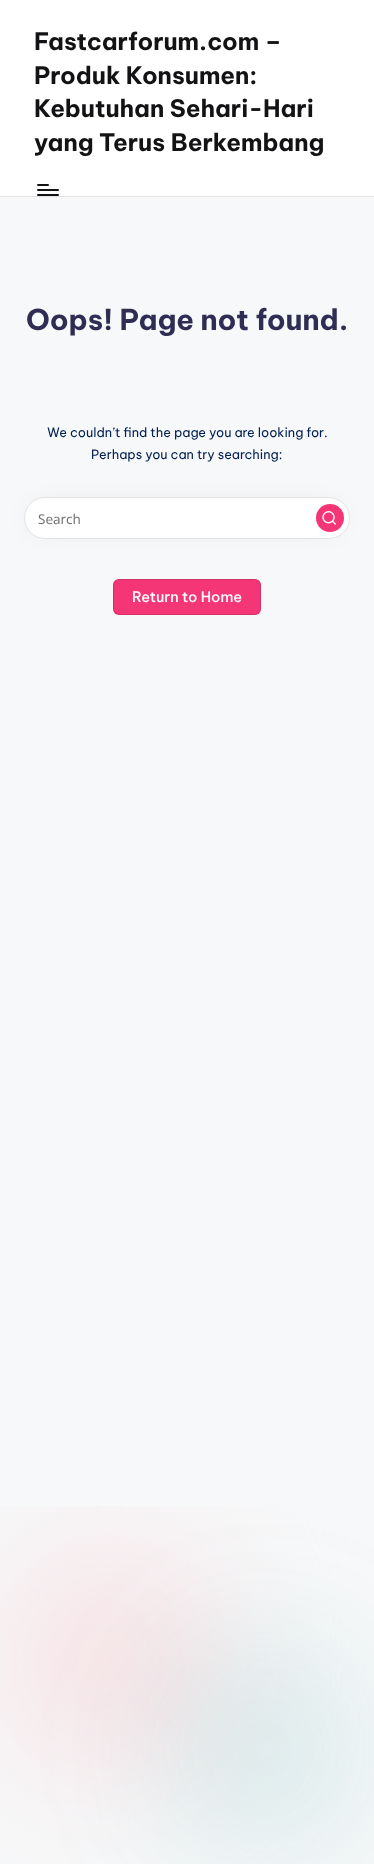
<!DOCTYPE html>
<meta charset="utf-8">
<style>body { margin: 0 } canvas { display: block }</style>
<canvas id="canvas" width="374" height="1864"></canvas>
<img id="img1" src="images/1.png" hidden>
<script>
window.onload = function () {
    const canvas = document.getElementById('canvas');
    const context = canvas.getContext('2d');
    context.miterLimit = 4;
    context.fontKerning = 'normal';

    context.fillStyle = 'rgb(247, 248, 249)';
    context.fillRect(0, 0, 374, 1864);
    context.fillStyle = 'rgb(255, 255, 255)';
    context.fillRect(0, 0, 374, 196);
    context.fillStyle = 'rgb(227, 227, 227)';
    context.fillRect(0, 196, 374, 1);
    context.fillStyle = 'rgb(19, 19, 21)';
    context.beginPath();
    context.roundRect(37, 189, 22, 2, 1);
    context.fill();
    context.beginPath();
    context.roundRect(37, 184, 12, 2, 1);
    context.fill();
    context.beginPath();
    context.roundRect(37, 194, 22, 2, 1);
    context.fill();
    context.fillStyle = 'rgba(0, 0, 0, 0.15)';
    context.filter = 'blur(13px)';
    context.beginPath();
    context.roundRect(34, 510, 301, 16, 8);
    context.fill();
    context.filter = 'none';
    context.fillStyle = 'rgb(255, 255, 255)';
    context.beginPath();
    context.roundRect(24, 497, 326, 42, 21);
    context.fill();
    context.beginPath();
    context.roundRect(24.5, 497.5, 325, 41, 20.5);
    context.strokeStyle = 'rgba(185, 185, 185, 0.4)';
    context.stroke();
    context.fillStyle = 'rgb(244, 54, 118)';
    context.beginPath();
    context.arc(330, 518, 14, 0, 2 * Math.PI);
    context.fill();
    context.drawImage(document.getElementById('img1'), 322, 511, 14, 14);
    context.beginPath();
    context.roundRect(113, 579, 148, 36, 6);
    context.fill();
    context.beginPath();
    context.roundRect(113.5, 579.5, 147, 35, 5.5);
    context.strokeStyle = 'rgba(0, 0, 0, 0.12)';
    context.stroke();
    context.save();
    context.beginPath();
    context.rect(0, 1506, 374, 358);
    context.clip();
    context.fillStyle = 'rgb(247, 227, 230)';
    context.filter = 'blur(64px)';
    context.beginPath();
    context.roundRect(0, 1546, 219, 230, 109.5);
    context.fill();
    context.filter = 'none';
    context.restore();
    context.fillStyle = 'rgba(4, 134, 139, 0.1)';
    context.filter = 'blur(64px)';
    context.beginPath();
    context.roundRect(155, 1634, 219, 230, 109.5);
    context.fill();
    context.filter = 'none';
    context.font = 'bold 24px Be Vietnam Pro';
    context.fillStyle = 'rgb(19, 19, 21)';
    context.fillText('Fastcarforum.com –', 34, 50);
    context.fillText('Produk Konsumen:', 34, 84);
    context.fillText('Kebutuhan Sehari-Hari', 34, 117);
    context.fillText('yang Terus Berkembang', 34, 151);
    context.font = 'bold 28.75px Be Vietnam Pro';
    context.fillStyle = 'rgb(48, 45, 85)';
    context.fillText('Oops! Page not found.', 26, 330);
    context.font = '12.8px Be Vietnam Pro';
    context.fillStyle = 'rgb(0, 32, 80)';
    context.fillText('We couldn’t find the page you are looking for.', 47, 437);
    context.fillText('Perhaps you can try searching:', 91, 459);
    context.font = '13.5px Noto Sans';
    context.fillStyle = 'rgb(117, 117, 117)';
    context.fillText('Search', 38, 524);
    context.font = '500 14.5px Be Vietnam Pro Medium';
    context.fillStyle = 'rgb(255, 255, 255)';
    context.fillText('Return to Home', 132, 602);
};
</script>
